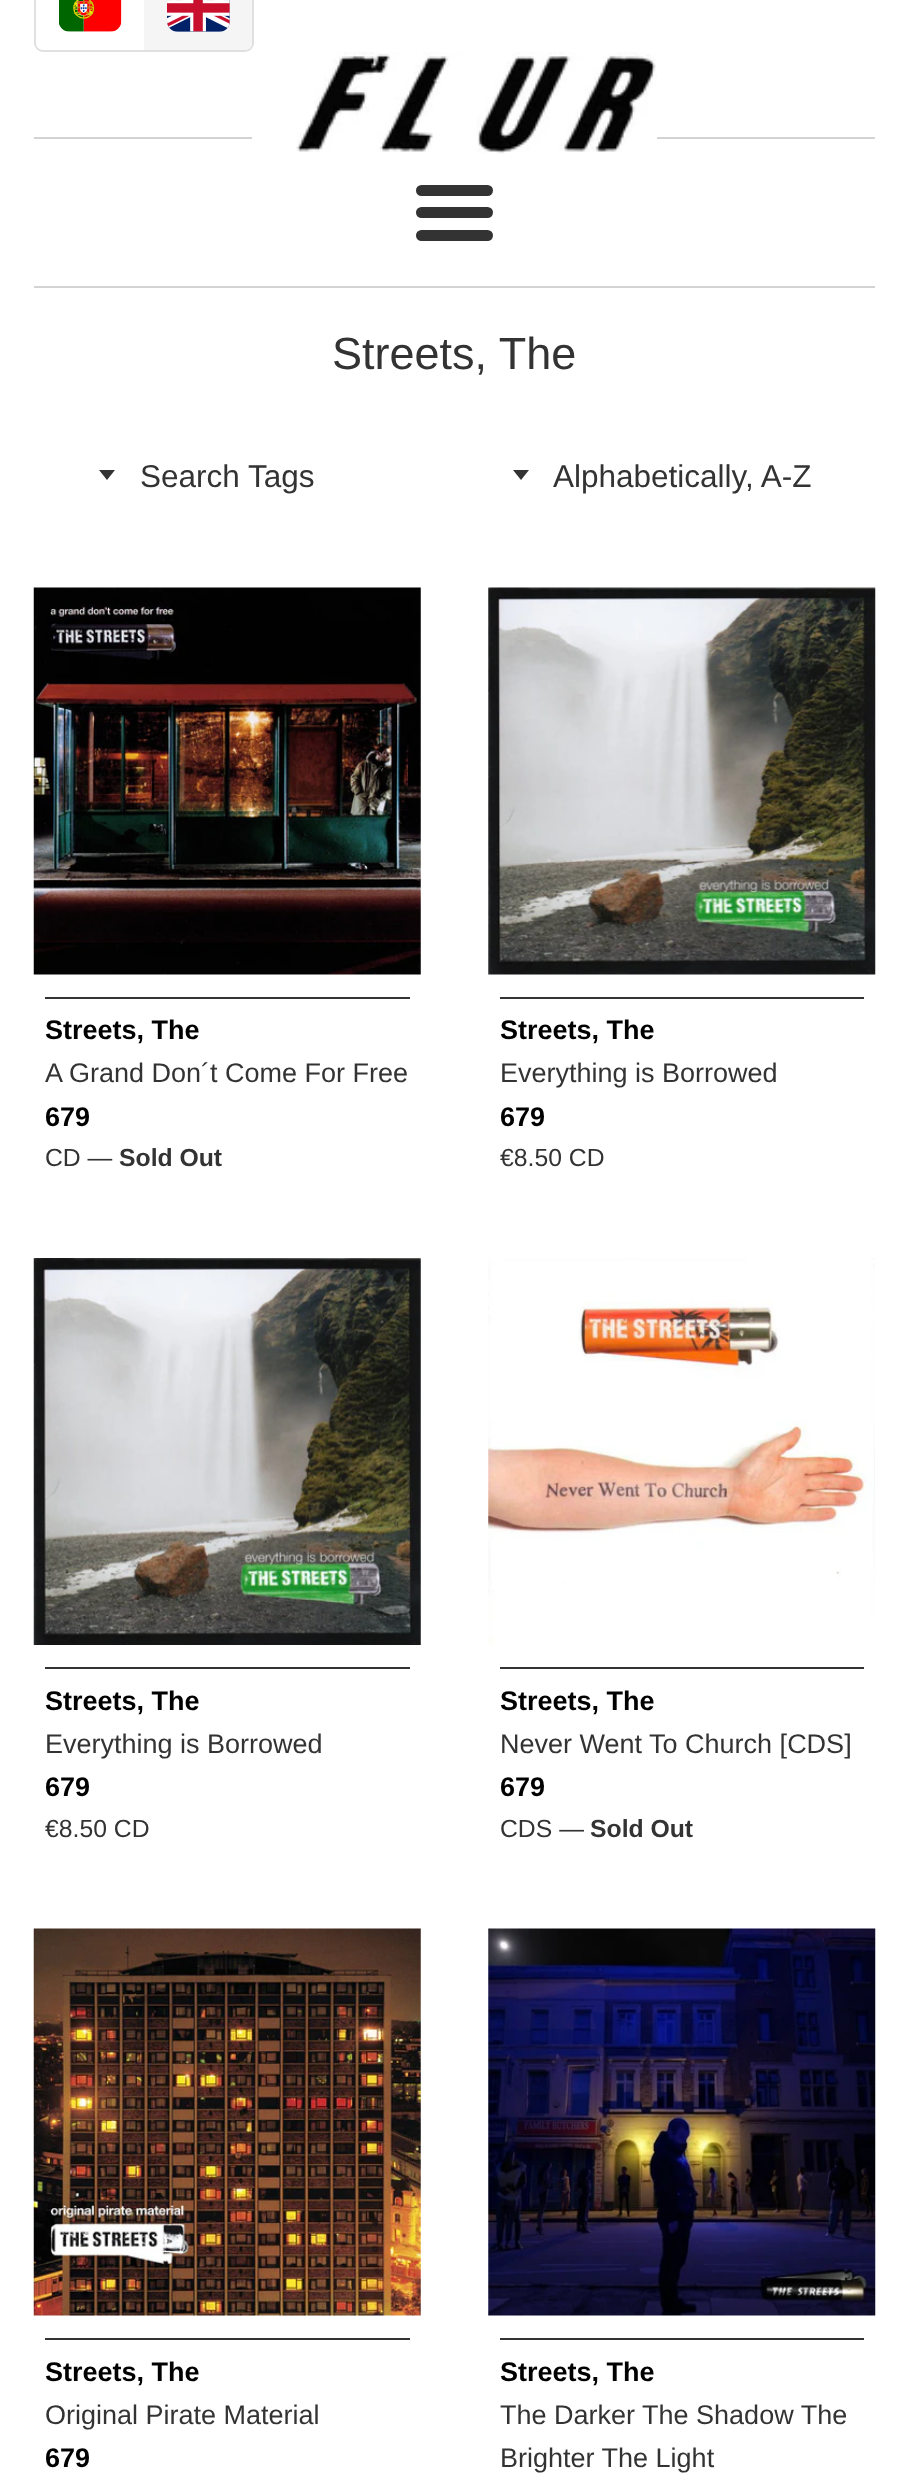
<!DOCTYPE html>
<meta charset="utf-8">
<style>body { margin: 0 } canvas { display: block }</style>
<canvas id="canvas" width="909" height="2478"></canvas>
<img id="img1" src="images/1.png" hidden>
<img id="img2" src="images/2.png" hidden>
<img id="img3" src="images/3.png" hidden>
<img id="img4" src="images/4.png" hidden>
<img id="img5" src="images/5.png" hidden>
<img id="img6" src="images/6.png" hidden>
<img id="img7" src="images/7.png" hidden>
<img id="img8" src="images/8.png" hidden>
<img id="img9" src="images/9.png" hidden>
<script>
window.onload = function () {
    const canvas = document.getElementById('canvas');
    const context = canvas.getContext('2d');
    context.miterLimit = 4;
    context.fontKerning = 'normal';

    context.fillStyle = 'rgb(255, 255, 255)';
    context.fillRect(0, 0, 909, 2478);
    context.beginPath();
    context.roundRect(35, -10, 218, 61, 8);
    context.strokeStyle = 'rgb(224, 224, 224)';
    context.lineWidth = 2;
    context.stroke();
    context.drawImage(document.getElementById('img1'), 59, 0, 63, 32);
    context.fillStyle = 'rgb(245, 245, 245)';
    context.beginPath();
    context.moveTo(144, -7);
    context.lineTo(245, -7);
    context.bezierCurveTo(249, -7, 252, -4, 252, 0);
    context.lineTo(252, 43);
    context.bezierCurveTo(252, 47, 249, 50, 245, 50);
    context.lineTo(144, 50);
    context.closePath();
    context.fill();
    context.drawImage(document.getElementById('img2'), 167, 0, 63, 32);
    context.fillStyle = 'rgb(210, 212, 209)';
    context.fillRect(34, 137, 841, 2);
    context.drawImage(document.getElementById('img3'), 252, 52, 405, 102);
    context.fillStyle = 'rgb(51, 51, 51)';
    context.beginPath();
    context.roundRect(416, 185, 77, 11, 5.5);
    context.fill();
    context.beginPath();
    context.roundRect(416, 207, 77, 11, 5.5);
    context.fill();
    context.beginPath();
    context.roundRect(416, 230, 77, 11, 5.5);
    context.fill();
    context.fillStyle = 'rgb(210, 212, 209)';
    context.fillRect(34, 286, 841, 2);
    context.fillStyle = 'rgb(51, 51, 51)';
    context.beginPath();
    context.moveTo(99, 470);
    context.lineTo(107, 480);
    context.lineTo(115, 470);
    context.closePath();
    context.fill();
    context.beginPath();
    context.moveTo(513, 470);
    context.lineTo(521, 480);
    context.lineTo(529, 470);
    context.closePath();
    context.fill();
    context.drawImage(document.getElementById('img4'), 33, 587, 388, 388);
    context.fillRect(45, 997, 365, 2);
    context.drawImage(document.getElementById('img5'), 488, 587, 388, 388);
    context.fillRect(500, 997, 364, 2);
    context.drawImage(document.getElementById('img6'), 33, 1258, 388, 387);
    context.fillRect(45, 1667, 365, 2);
    context.drawImage(document.getElementById('img7'), 488, 1258, 387, 387);
    context.fillRect(500, 1667, 364, 2);
    context.drawImage(document.getElementById('img8'), 33, 1928, 388, 388);
    context.fillRect(45, 2338, 365, 2);
    context.drawImage(document.getElementById('img9'), 488, 1928, 388, 388);
    context.fillRect(500, 2338, 364, 2);
    context.font = '45px Liberation Sans';
    context.fillText('Streets, The', 332, 369);
    context.font = '31.5px Liberation Sans';
    context.fillText('Search Tags', 140, 487);
    context.fillText('Alphabetically, A-Z', 553, 487);
    context.font = 'bold 27px Liberation Sans';
    context.fillStyle = 'rgb(0, 0, 0)';
    context.fillText('Streets, The', 45, 1039);
    context.font = '27px Liberation Sans';
    context.fillStyle = 'rgb(51, 51, 51)';
    context.fillText('A Grand Don´t Come For Free', 45, 1082);
    context.font = 'bold 27px Liberation Sans';
    context.fillStyle = 'rgb(0, 0, 0)';
    context.fillText('679', 45, 1126);
    context.font = '24.75px Liberation Sans';
    context.fillStyle = 'rgb(51, 51, 51)';
    context.fillText('CD —', 45, 1166);
    context.font = 'bold 24.75px Liberation Sans';
    context.fillText('Sold Out', 119, 1166);
    context.font = 'bold 27px Liberation Sans';
    context.fillStyle = 'rgb(0, 0, 0)';
    context.fillText('Streets, The', 500, 1039);
    context.font = '27px Liberation Sans';
    context.fillStyle = 'rgb(51, 51, 51)';
    context.fillText('Everything is Borrowed', 500, 1082);
    context.font = 'bold 27px Liberation Sans';
    context.fillStyle = 'rgb(0, 0, 0)';
    context.fillText('679', 500, 1126);
    context.font = '24.75px Liberation Sans';
    context.fillStyle = 'rgb(51, 51, 51)';
    context.fillText('€8.50 CD', 500, 1166);
    context.font = 'bold 27px Liberation Sans';
    context.fillStyle = 'rgb(0, 0, 0)';
    context.fillText('Streets, The', 45, 1710);
    context.font = '27px Liberation Sans';
    context.fillStyle = 'rgb(51, 51, 51)';
    context.fillText('Everything is Borrowed', 45, 1753);
    context.font = 'bold 27px Liberation Sans';
    context.fillStyle = 'rgb(0, 0, 0)';
    context.fillText('679', 45, 1796);
    context.font = '24.75px Liberation Sans';
    context.fillStyle = 'rgb(51, 51, 51)';
    context.fillText('€8.50 CD', 45, 1837);
    context.font = 'bold 27px Liberation Sans';
    context.fillStyle = 'rgb(0, 0, 0)';
    context.fillText('Streets, The', 500, 1710);
    context.font = '27px Liberation Sans';
    context.fillStyle = 'rgb(51, 51, 51)';
    context.fillText('Never Went To Church [CDS]', 500, 1753);
    context.font = 'bold 27px Liberation Sans';
    context.fillStyle = 'rgb(0, 0, 0)';
    context.fillText('679', 500, 1796);
    context.font = '24.75px Liberation Sans';
    context.fillStyle = 'rgb(51, 51, 51)';
    context.fillText('CDS —', 500, 1837);
    context.font = 'bold 24.75px Liberation Sans';
    context.fillText('Sold Out', 590, 1837);
    context.font = 'bold 27px Liberation Sans';
    context.fillStyle = 'rgb(0, 0, 0)';
    context.fillText('Streets, The', 45, 2381);
    context.font = '27px Liberation Sans';
    context.fillStyle = 'rgb(51, 51, 51)';
    context.fillText('Original Pirate Material', 45, 2424);
    context.font = 'bold 27px Liberation Sans';
    context.fillStyle = 'rgb(0, 0, 0)';
    context.fillText('679', 45, 2467);
    context.fillText('Streets, The', 500, 2381);
    context.font = '27px Liberation Sans';
    context.fillStyle = 'rgb(51, 51, 51)';
    context.fillText('The Darker The Shadow The', 500, 2424);
    context.fillText('Brighter The Light', 500, 2467);
};
</script>
